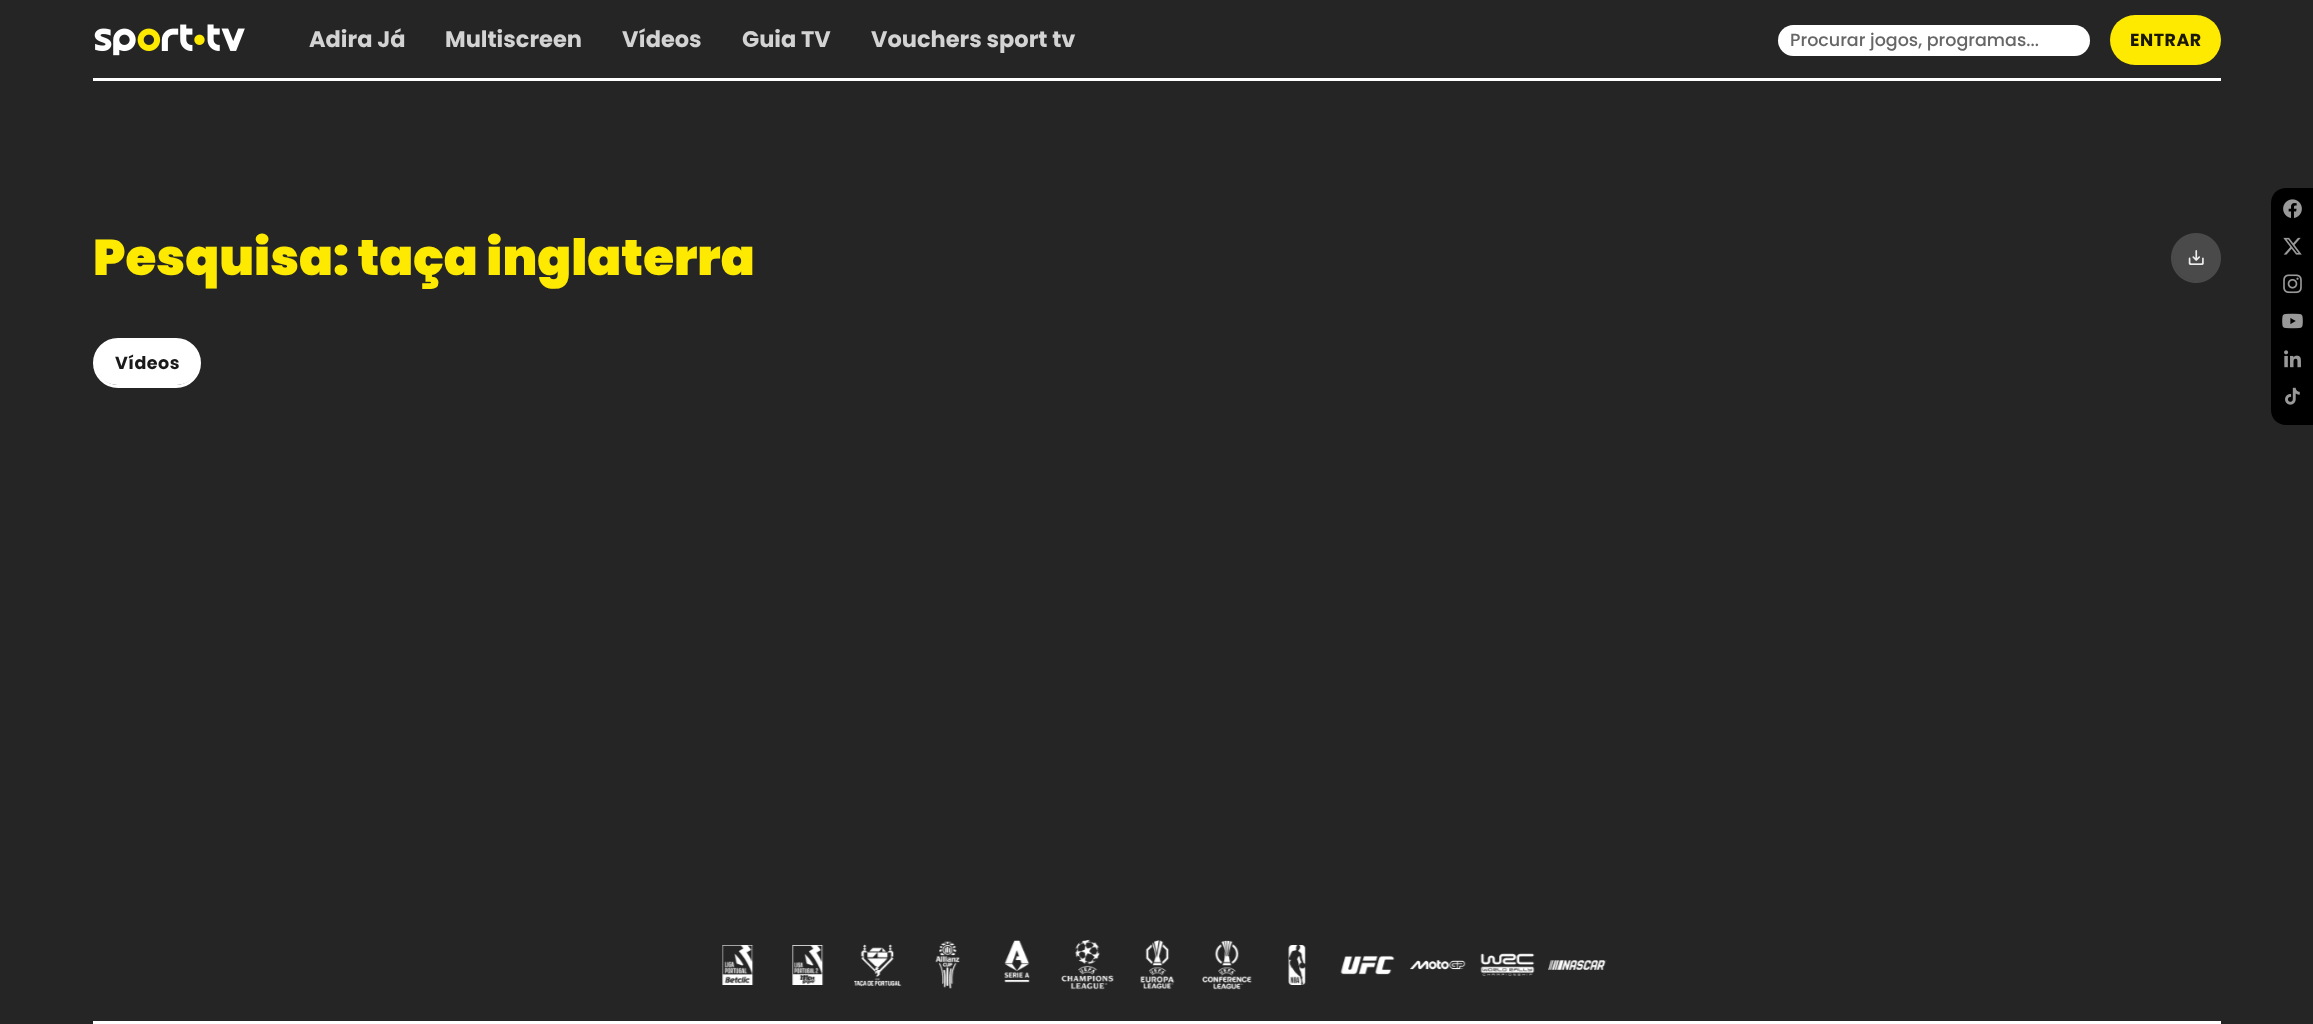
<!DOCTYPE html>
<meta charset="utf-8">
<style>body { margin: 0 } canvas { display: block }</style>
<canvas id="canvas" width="2313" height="1024"></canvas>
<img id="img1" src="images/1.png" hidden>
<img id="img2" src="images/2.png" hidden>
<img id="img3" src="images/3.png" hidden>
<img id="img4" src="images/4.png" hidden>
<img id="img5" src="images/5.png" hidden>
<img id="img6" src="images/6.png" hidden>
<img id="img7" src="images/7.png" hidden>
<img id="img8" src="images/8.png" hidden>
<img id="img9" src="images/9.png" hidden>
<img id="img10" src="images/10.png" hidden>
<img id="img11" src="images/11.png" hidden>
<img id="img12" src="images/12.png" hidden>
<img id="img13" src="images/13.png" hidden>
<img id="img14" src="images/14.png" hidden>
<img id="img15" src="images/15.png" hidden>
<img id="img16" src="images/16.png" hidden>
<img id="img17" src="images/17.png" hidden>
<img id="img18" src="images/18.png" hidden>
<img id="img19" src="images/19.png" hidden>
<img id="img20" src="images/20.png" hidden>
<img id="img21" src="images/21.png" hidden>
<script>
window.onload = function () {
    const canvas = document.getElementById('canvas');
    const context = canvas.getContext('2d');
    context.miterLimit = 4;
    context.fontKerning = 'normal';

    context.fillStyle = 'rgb(37, 37, 37)';
    context.fillRect(0, 0, 2313, 1024);
    context.drawImage(document.getElementById('img1'), 94, 24, 151, 32);
    context.fillStyle = 'rgb(255, 255, 255)';
    context.beginPath();
    context.roundRect(1778, 25, 312, 31, 15.5);
    context.fill();
    context.fillStyle = 'rgb(253, 234, 0)';
    context.beginPath();
    context.roundRect(2110, 15, 111, 50, 25);
    context.fill();
    context.fillStyle = 'rgb(255, 255, 255)';
    context.fillRect(93, 78, 2128, 3);
    context.drawImage(document.getElementById('img2'), 2171, 233, 50, 50);
    context.beginPath();
    context.roundRect(94.5, 339.5, 105, 47, 23.5);
    context.strokeStyle = 'rgb(255, 255, 255)';
    context.lineWidth = 3;
    context.stroke();
    context.beginPath();
    context.roundRect(95, 340, 104, 45, 22.5);
    context.fill();
    context.fillStyle = 'rgb(0, 0, 0)';
    context.beginPath();
    context.moveTo(2286, 188);
    context.lineTo(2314, 188);
    context.lineTo(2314, 425);
    context.lineTo(2286, 425);
    context.bezierCurveTo(2277.5, 425, 2271, 418.5, 2271, 410);
    context.lineTo(2271, 203);
    context.bezierCurveTo(2271, 194.5, 2277.5, 188, 2286, 188);
    context.closePath();
    context.fill();
    context.drawImage(document.getElementById('img3'), 2283, 199, 19, 19);
    context.drawImage(document.getElementById('img4'), 2283, 237, 19, 18);
    context.drawImage(document.getElementById('img5'), 2283, 274, 19, 20);
    context.drawImage(document.getElementById('img6'), 2282, 313, 21, 16);
    context.drawImage(document.getElementById('img7'), 2284, 350, 17, 18);
    context.drawImage(document.getElementById('img8'), 2285, 387, 15, 18);
    context.fillStyle = 'rgb(255, 255, 255)';
    context.fillRect(93, 1021, 2128, 3);
    context.drawImage(document.getElementById('img9'), 722, 945, 32, 40);
    context.drawImage(document.getElementById('img10'), 792, 945, 32, 40);
    context.drawImage(document.getElementById('img11'), 854, 944, 48, 43);
    context.drawImage(document.getElementById('img12'), 935, 941, 25, 48);
    context.drawImage(document.getElementById('img13'), 1004, 940, 26, 43);
    context.drawImage(document.getElementById('img14'), 1061, 939, 53, 51);
    context.drawImage(document.getElementById('img15'), 1140, 940, 35, 49);
    context.drawImage(document.getElementById('img16'), 1202, 940, 50, 50);
    context.drawImage(document.getElementById('img17'), 1288, 945, 18, 40);
    context.drawImage(document.getElementById('img18'), 1340, 955, 55, 20);
    context.drawImage(document.getElementById('img19'), 1410, 960, 56, 10);
    context.drawImage(document.getElementById('img20'), 1480, 953, 55, 23);
    context.drawImage(document.getElementById('img21'), 1548, 960, 59, 10);
    context.font = 'bold 22.5px Poppins';
    context.fillStyle = 'rgb(211, 211, 211)';
    context.fillText('Adira Já', 309, 47);
    context.fillText('Multiscreen', 445, 47);
    context.fillText('Vídeos', 622, 47);
    context.fillText('Guia TV', 742, 47);
    context.fillText('Vouchers sport tv', 871, 47);
    context.font = '500 17.5px Poppins';
    context.fillStyle = 'rgb(102, 102, 102)';
    context.fillText('Procurar jogos, programas...', 1790, 46);
    context.letterSpacing = '0.5px';
    context.font = 'bold 17.5px Poppins';
    context.fillStyle = 'rgb(26, 24, 0)';
    context.fillText('ENTRAR', 2130, 46);
    context.letterSpacing = '0px';
    context.font = '900 50px Poppins';
    context.fillStyle = 'rgb(253, 234, 0)';
    context.fillText('Pesquisa: taça inglaterra', 93, 275);
    context.letterSpacing = '0.5px';
    context.font = 'bold 17.5px Poppins';
    context.fillStyle = 'rgb(26, 26, 26)';
    context.fillText('Vídeos', 115, 369);
};
</script>
